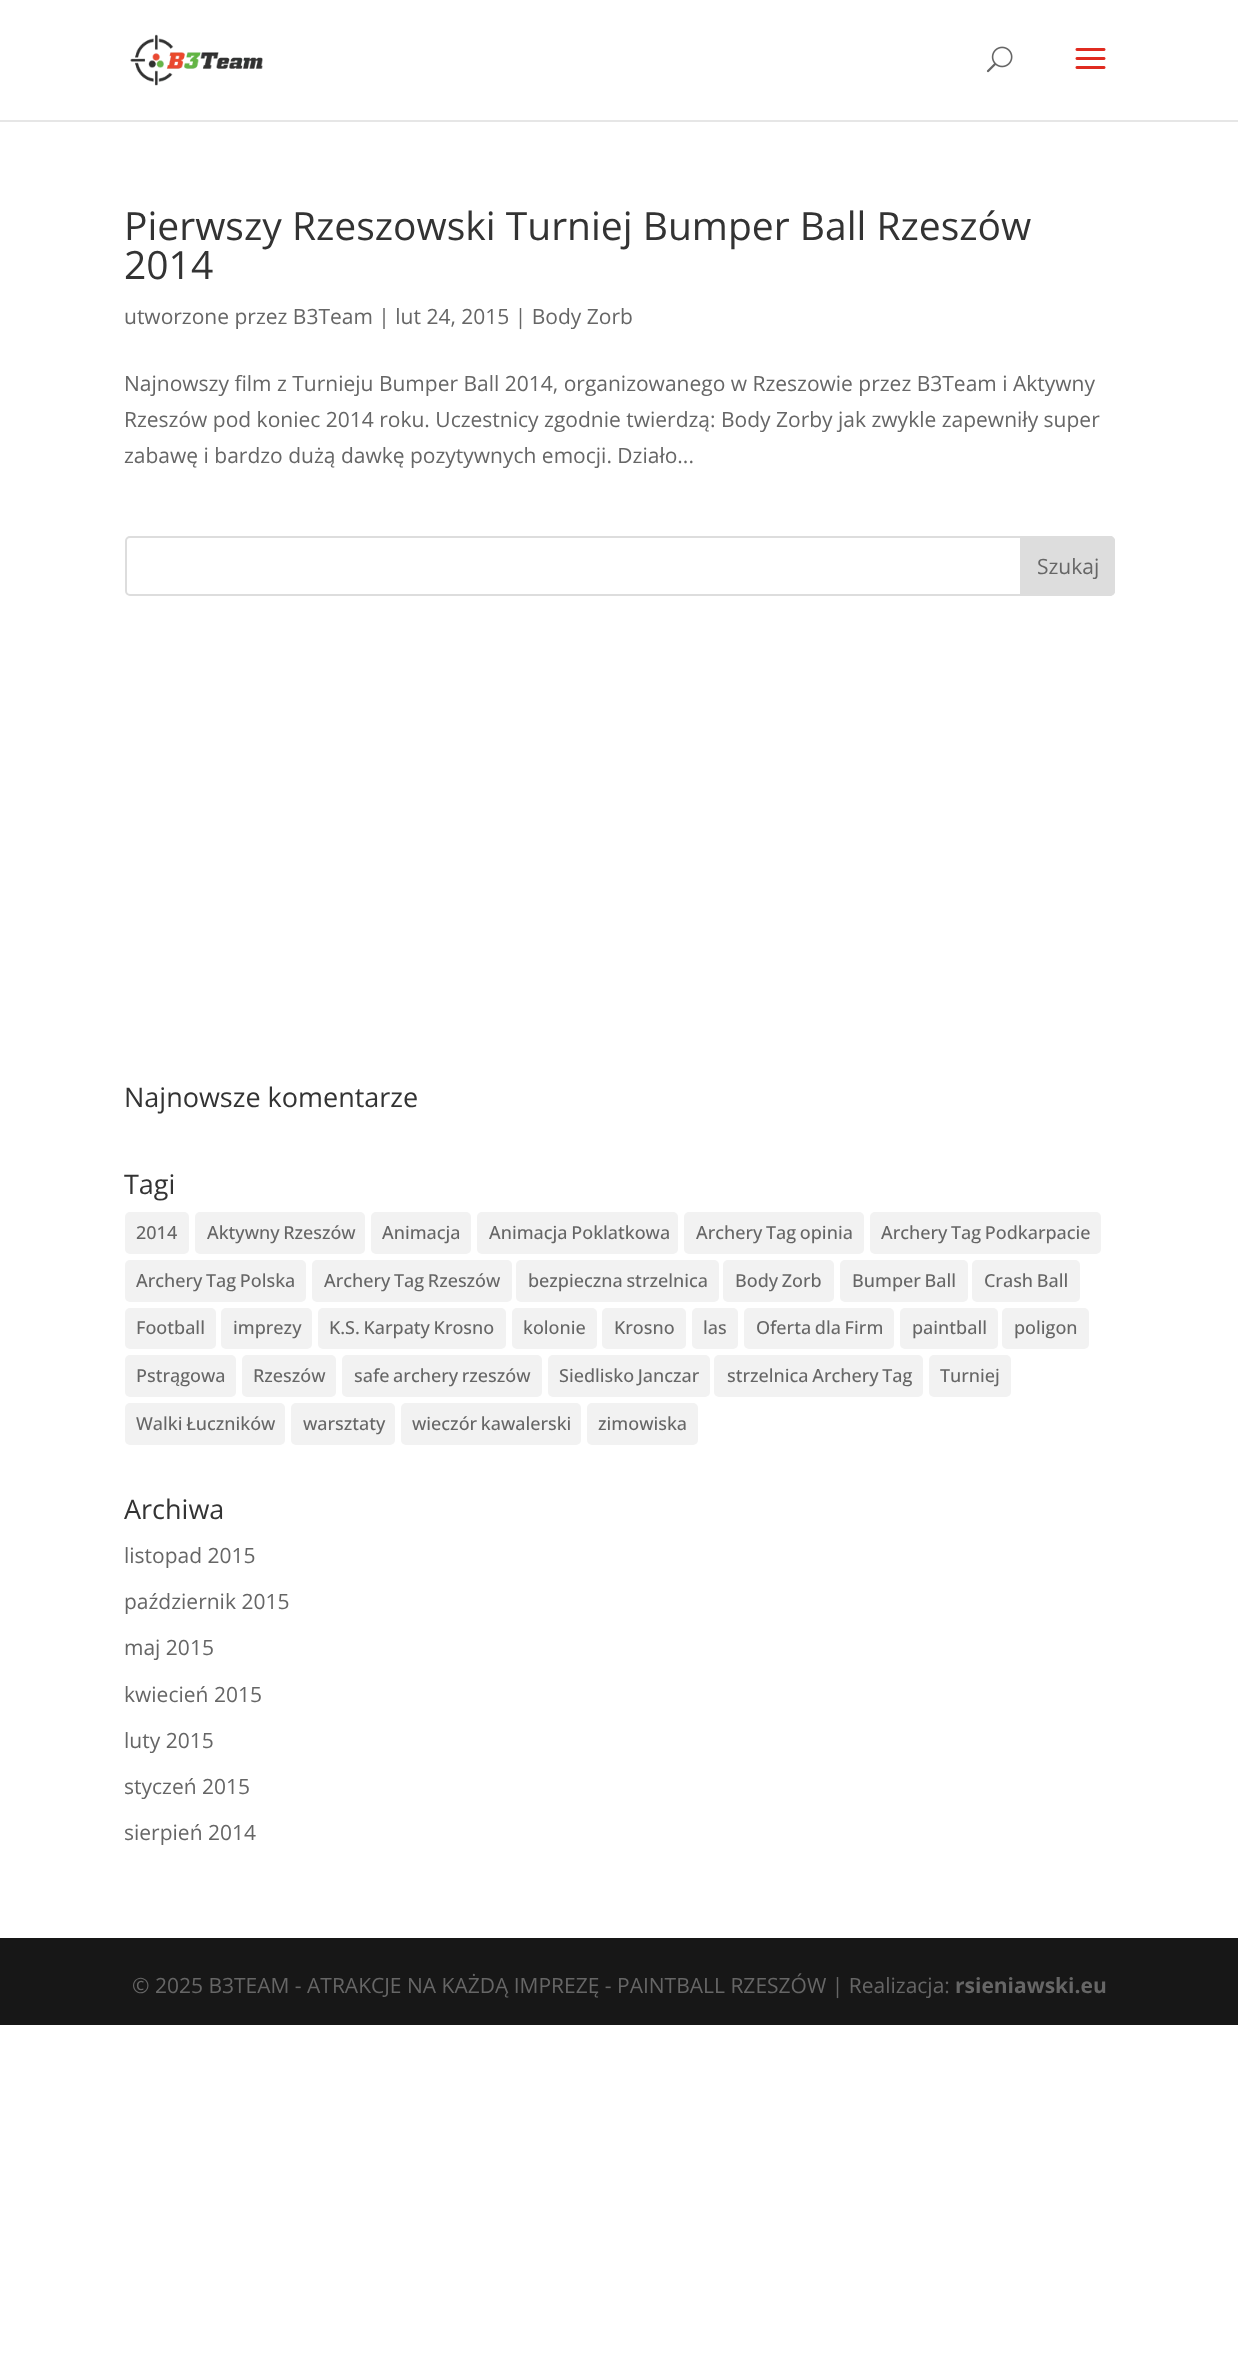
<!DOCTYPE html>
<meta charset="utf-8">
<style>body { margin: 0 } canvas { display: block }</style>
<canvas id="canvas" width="1238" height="2363"></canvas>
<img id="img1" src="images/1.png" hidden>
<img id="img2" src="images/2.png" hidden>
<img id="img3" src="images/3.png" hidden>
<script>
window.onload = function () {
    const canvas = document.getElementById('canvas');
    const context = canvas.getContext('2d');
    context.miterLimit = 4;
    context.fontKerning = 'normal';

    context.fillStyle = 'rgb(255, 255, 255)';
    context.fillRect(0, 0, 1238, 2363);
    context.fillStyle = 'rgb(230, 230, 230)';
    context.fillRect(0, 120, 1238, 2);
    context.drawImage(document.getElementById('img1'), 130, 34, 133, 52);
    context.drawImage(document.getElementById('img2'), 986, 46, 27, 27);
    context.drawImage(document.getElementById('img3'), 1075, 48, 31, 21);
    context.beginPath();
    context.roundRect(126, 537, 988, 58, 4);
    context.strokeStyle = 'rgb(221, 221, 221)';
    context.lineWidth = 2;
    context.stroke();
    context.fillStyle = 'rgb(221, 221, 221)';
    context.beginPath();
    context.roundRect(1021, 537, 93, 58, [0, 4, 4, 0]);
    context.fill();
    context.stroke();
    context.fillStyle = 'rgb(242, 242, 242)';
    context.beginPath();
    context.roundRect(125, 1212, 64, 42, 5);
    context.fill();
    context.beginPath();
    context.roundRect(195, 1212, 170, 42, 5);
    context.fill();
    context.beginPath();
    context.roundRect(371, 1212, 100, 42, 5);
    context.fill();
    context.beginPath();
    context.roundRect(477, 1212, 201, 42, 5);
    context.fill();
    context.beginPath();
    context.roundRect(684, 1212, 180, 42, 5);
    context.fill();
    context.beginPath();
    context.roundRect(870, 1212, 231, 42, 5);
    context.fill();
    context.beginPath();
    context.roundRect(125, 1260, 181, 42, 5);
    context.fill();
    context.beginPath();
    context.roundRect(312, 1260, 200, 42, 5);
    context.fill();
    context.beginPath();
    context.roundRect(516, 1260, 203, 42, 5);
    context.fill();
    context.beginPath();
    context.roundRect(723, 1260, 111, 42, 5);
    context.fill();
    context.beginPath();
    context.roundRect(840, 1260, 128, 42, 5);
    context.fill();
    context.beginPath();
    context.roundRect(972, 1260, 108, 42, 5);
    context.fill();
    context.beginPath();
    context.roundRect(125, 1308, 91, 41, 5);
    context.fill();
    context.beginPath();
    context.roundRect(221, 1308, 91, 41, 5);
    context.fill();
    context.beginPath();
    context.roundRect(318, 1308, 188, 41, 5);
    context.fill();
    context.beginPath();
    context.roundRect(512, 1308, 85, 41, 5);
    context.fill();
    context.beginPath();
    context.roundRect(602, 1308, 84, 41, 5);
    context.fill();
    context.beginPath();
    context.roundRect(692, 1308, 46, 41, 5);
    context.fill();
    context.beginPath();
    context.roundRect(744, 1308, 150, 41, 5);
    context.fill();
    context.beginPath();
    context.roundRect(900, 1308, 98, 41, 5);
    context.fill();
    context.beginPath();
    context.roundRect(1002, 1308, 87, 41, 5);
    context.fill();
    context.beginPath();
    context.roundRect(125, 1355, 111, 42, 5);
    context.fill();
    context.beginPath();
    context.roundRect(242, 1355, 94, 42, 5);
    context.fill();
    context.beginPath();
    context.roundRect(342, 1355, 200, 42, 5);
    context.fill();
    context.beginPath();
    context.roundRect(548, 1355, 162, 42, 5);
    context.fill();
    context.beginPath();
    context.roundRect(714, 1355, 209, 42, 5);
    context.fill();
    context.beginPath();
    context.roundRect(929, 1355, 82, 42, 5);
    context.fill();
    context.beginPath();
    context.roundRect(125, 1403, 160, 42, 5);
    context.fill();
    context.beginPath();
    context.roundRect(291, 1403, 104, 42, 5);
    context.fill();
    context.beginPath();
    context.roundRect(401, 1403, 180, 42, 5);
    context.fill();
    context.beginPath();
    context.roundRect(587, 1403, 111, 42, 5);
    context.fill();
    context.fillStyle = 'rgb(23, 23, 23)';
    context.fillRect(0, 1938, 1238, 87);
    context.font = '39px Open Sans';
    context.fillStyle = 'rgb(51, 51, 51)';
    context.fillText('Pierwszy Rzeszowski Turniej Bumper Ball Rzeszów', 124, 240);
    context.fillText('2014', 124, 279);
    context.font = '21px Open Sans';
    context.fillStyle = 'rgb(102, 102, 102)';
    context.fillText('utworzone przez B3Team | lut 24, 2015 | Body Zorb', 124, 324);
    context.fillText('Najnowszy film z Turnieju Bumper Ball 2014, organizowanego w Rzeszowie przez B3Team i Aktywny', 124, 391);
    context.fillText('Rzeszów pod koniec 2014 roku. Uczestnicy zgodnie twierdzą: Body Zorby jak zwykle zapewniły super', 124, 427);
    context.fillText('zabawę i bardzo dużą dawkę pozytywnych emocji. Działo...', 124, 463);
    context.fillText('Szukaj', 1037, 574);
    context.font = '27px Open Sans';
    context.fillStyle = 'rgb(51, 51, 51)';
    context.fillText('Najnowsze komentarze', 124, 1107);
    context.fillText('Tagi', 124, 1194);
    context.font = '500 18px Open Sans';
    context.fillStyle = 'rgb(102, 102, 102)';
    context.fillText('2014', 136, 1239);
    context.wordSpacing = '-1px';
    context.fillText('Aktywny Rzeszów', 207, 1239);
    context.wordSpacing = '0px';
    context.fillText('Animacja', 382, 1239);
    context.wordSpacing = '-1px';
    context.fillText('Animacja Poklatkowa', 489, 1239);
    context.fillText('Archery Tag opinia', 696, 1239);
    context.fillText('Archery Tag Podkarpacie', 881, 1239);
    context.fillText('Archery Tag Polska', 136, 1287);
    context.fillText('Archery Tag Rzeszów', 324, 1287);
    context.fillText('bezpieczna strzelnica', 528, 1287);
    context.fillText('Body Zorb', 735, 1287);
    context.fillText('Bumper Ball', 852, 1287);
    context.fillText('Crash Ball', 984, 1287);
    context.wordSpacing = '0px';
    context.fillText('Football', 136, 1334);
    context.fillText('imprezy', 233, 1334);
    context.wordSpacing = '-1px';
    context.fillText('K.S. Karpaty Krosno', 329, 1334);
    context.wordSpacing = '0px';
    context.fillText('kolonie', 523, 1334);
    context.fillText('Krosno', 614, 1334);
    context.fillText('las', 703, 1334);
    context.wordSpacing = '-1px';
    context.fillText('Oferta dla Firm', 756, 1334);
    context.wordSpacing = '0px';
    context.fillText('paintball', 912, 1334);
    context.fillText('poligon', 1014, 1334);
    context.fillText('Pstrągowa', 136, 1382);
    context.fillText('Rzeszów', 253, 1382);
    context.wordSpacing = '-1px';
    context.fillText('safe archery rzeszów', 354, 1382);
    context.fillText('Siedlisko Janczar', 559, 1382);
    context.fillText('strzelnica Archery Tag', 727, 1382);
    context.wordSpacing = '0px';
    context.fillText('Turniej', 940, 1382);
    context.wordSpacing = '-1px';
    context.fillText('Walki Łuczników', 136, 1430);
    context.wordSpacing = '0px';
    context.fillText('warsztaty', 303, 1430);
    context.wordSpacing = '-1px';
    context.fillText('wieczór kawalerski', 412, 1430);
    context.wordSpacing = '0px';
    context.fillText('zimowiska', 598, 1430);
    context.font = '27px Open Sans';
    context.fillStyle = 'rgb(51, 51, 51)';
    context.fillText('Archiwa', 124, 1519);
    context.font = '21px Open Sans';
    context.fillStyle = 'rgb(102, 102, 102)';
    context.fillText('listopad 2015', 124, 1563);
    context.fillText('październik 2015', 124, 1609);
    context.fillText('maj 2015', 124, 1655);
    context.fillText('kwiecień 2015', 124, 1702);
    context.fillText('luty 2015', 124, 1748);
    context.fillText('styczeń 2015', 124, 1794);
    context.fillText('sierpień 2014', 124, 1840);
    context.fillText('© 2025 B3TEAM - ATRAKCJE NA KAŻDĄ IMPREZĘ - PAINTBALL RZESZÓW | Realizacja:', 132, 1993);
    context.font = 'bold 21px Open Sans';
    context.fillText('rsieniawski.eu', 955, 1993);
};
</script>
